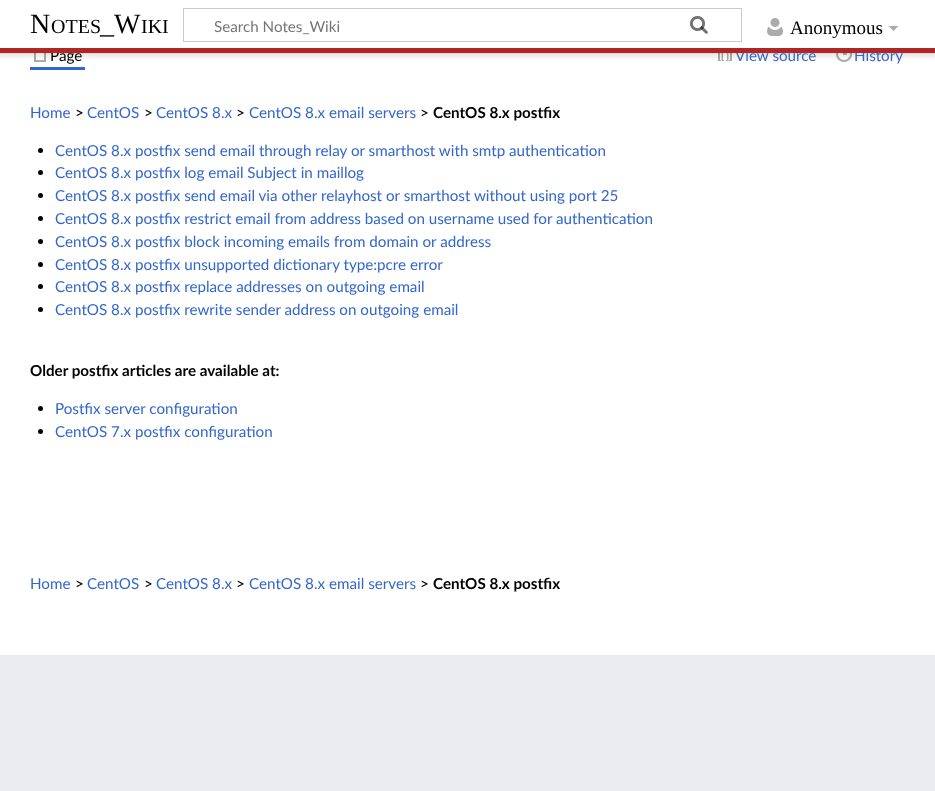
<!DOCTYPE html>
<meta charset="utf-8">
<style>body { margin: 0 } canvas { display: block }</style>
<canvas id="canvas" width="935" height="791"></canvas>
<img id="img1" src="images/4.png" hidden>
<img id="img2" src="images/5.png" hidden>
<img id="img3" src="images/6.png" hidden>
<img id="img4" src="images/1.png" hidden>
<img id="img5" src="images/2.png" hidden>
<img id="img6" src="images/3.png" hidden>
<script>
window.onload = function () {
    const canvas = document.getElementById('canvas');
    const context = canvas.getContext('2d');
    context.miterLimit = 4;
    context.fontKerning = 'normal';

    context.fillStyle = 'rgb(234, 236, 240)';
    context.fillRect(0, 0, 935, 791);
    context.fillStyle = 'rgb(255, 255, 255)';
    context.fillRect(0, 53, 935, 602);
    context.drawImage(document.getElementById('img1'), 34, 53, 12, 9);
    context.drawImage(document.getElementById('img2'), 718, 53, 14, 8);
    context.drawImage(document.getElementById('img3'), 836, 53, 16, 9);
    context.fillStyle = 'rgba(0, 0, 0, 0.2)';
    context.filter = 'blur(1px)';
    context.beginPath();
    context.rect(0, 48, 935, 5);
    context.fill();
    context.filter = 'none';
    context.fillStyle = 'rgba(0, 0, 0, 0.07)';
    context.filter = 'blur(1.5px)';
    context.beginPath();
    context.rect(-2, 49, 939, 9);
    context.fill();
    context.filter = 'none';
    context.fillStyle = 'rgb(255, 255, 255)';
    context.fillRect(0, 0, 935, 48);
    context.strokeStyle = 'rgb(200, 204, 209)';
    context.strokeRect(183.5, 8.5, 558, 33);
    context.drawImage(document.getElementById('img4'), 690, 16, 18, 18);
    context.drawImage(document.getElementById('img5'), 690, 16, 18, 18);
    context.drawImage(document.getElementById('img6'), 767, 18, 16, 18);
    context.fillStyle = 'rgb(171, 171, 171)';
    context.beginPath();
    context.moveTo(898.5, 26);
    context.lineTo(893.5, 31);
    context.lineTo(888.5, 26);
    context.closePath();
    context.fill();
    context.fillStyle = 'rgb(51, 102, 204)';
    context.fillRect(30, 67, 55, 3);
    context.fillStyle = 'rgb(0, 0, 0)';
    context.beginPath();
    context.arc(40.5, 150.5, 2.5, 0, 2 * Math.PI);
    context.fill();
    context.beginPath();
    context.arc(40.5, 172.5, 2.5, 0, 2 * Math.PI);
    context.fill();
    context.beginPath();
    context.arc(40.5, 195.5, 2.5, 0, 2 * Math.PI);
    context.fill();
    context.beginPath();
    context.arc(40.5, 218.5, 2.5, 0, 2 * Math.PI);
    context.fill();
    context.beginPath();
    context.arc(40.5, 241.5, 2.5, 0, 2 * Math.PI);
    context.fill();
    context.beginPath();
    context.arc(40.5, 264.5, 2.5, 0, 2 * Math.PI);
    context.fill();
    context.beginPath();
    context.arc(40.5, 286.5, 2.5, 0, 2 * Math.PI);
    context.fill();
    context.beginPath();
    context.arc(40.5, 309.5, 2.5, 0, 2 * Math.PI);
    context.fill();
    context.beginPath();
    context.arc(40.5, 408.5, 2.5, 0, 2 * Math.PI);
    context.fill();
    context.beginPath();
    context.arc(40.5, 431.5, 2.5, 0, 2 * Math.PI);
    context.fill();
    context.font = '28px Liberation Serif';
    context.fillText('N', 30, 33);
    context.font = '20px Liberation Serif';
    context.fillText('OTES', 51, 33);
    context.font = '28px Liberation Serif';
    context.fillText('_W', 100, 33);
    context.font = '20px Liberation Serif';
    context.fillText('IKI', 141, 33);
    context.font = '15.2px Lato';
    context.fillStyle = 'rgb(117, 117, 117)';
    context.fillText('Search Notes_Wiki', 214, 32);
    context.font = '19px Liberation Serif';
    context.fillStyle = 'rgb(0, 0, 0)';
    context.fillText('Anonymous', 790, 34);
    context.font = '15.2px Lato';
    context.fillText('Page', 50, 61);
    context.fillStyle = 'rgb(51, 102, 204)';
    context.fillText('View source', 735, 61);
    context.fillText('History', 854, 61);
    context.fillStyle = 'rgb(179, 36, 36)';
    context.fillRect(0, 48, 935, 5);
    context.fillStyle = 'rgb(51, 102, 204)';
    context.fillText('Home', 30, 118);
    context.fillStyle = 'rgb(0, 0, 0)';
    context.fillText('>', 75, 118);
    context.fillStyle = 'rgb(51, 102, 204)';
    context.fillText('CentOS', 87, 118);
    context.fillStyle = 'rgb(0, 0, 0)';
    context.fillText('>', 144, 118);
    context.fillStyle = 'rgb(51, 102, 204)';
    context.fillText('CentOS 8.x', 156, 118);
    context.fillStyle = 'rgb(0, 0, 0)';
    context.fillText('>', 236, 118);
    context.fillStyle = 'rgb(51, 102, 204)';
    context.fillText('CentOS 8.x email servers', 249, 118);
    context.fillStyle = 'rgb(0, 0, 0)';
    context.fillText('>', 420, 118);
    context.font = 'bold 15.2px Lato';
    context.fillText('CentOS 8.x postfix', 433, 118);
    context.font = '15.2px Lato';
    context.fillStyle = 'rgb(51, 102, 204)';
    context.fillText('CentOS 8.x postfix send email through relay or smarthost with smtp authentication', 55, 156);
    context.fillText('CentOS 8.x postfix log email Subject in maillog', 55, 178);
    context.fillText('CentOS 8.x postfix send email via other relayhost or smarthost without using port 25', 55, 201);
    context.fillText('CentOS 8.x postfix restrict email from address based on username used for authentication', 55, 224);
    context.fillText('CentOS 8.x postfix block incoming emails from domain or address', 55, 247);
    context.fillText('CentOS 8.x postfix unsupported dictionary type:pcre error', 55, 270);
    context.fillText('CentOS 8.x postfix replace addresses on outgoing email', 55, 292);
    context.fillText('CentOS 8.x postfix rewrite sender address on outgoing email', 55, 315);
    context.font = 'bold 15.2px Lato';
    context.fillStyle = 'rgb(0, 0, 0)';
    context.fillText('Older postfix articles are available at:', 30, 376);
    context.font = '15.2px Lato';
    context.fillStyle = 'rgb(51, 102, 204)';
    context.fillText('Postfix server configuration', 55, 414);
    context.fillText('CentOS 7.x postfix configuration', 55, 437);
    context.fillText('Home', 30, 589);
    context.fillStyle = 'rgb(0, 0, 0)';
    context.fillText('>', 75, 589);
    context.fillStyle = 'rgb(51, 102, 204)';
    context.fillText('CentOS', 87, 589);
    context.fillStyle = 'rgb(0, 0, 0)';
    context.fillText('>', 144, 589);
    context.fillStyle = 'rgb(51, 102, 204)';
    context.fillText('CentOS 8.x', 156, 589);
    context.fillStyle = 'rgb(0, 0, 0)';
    context.fillText('>', 236, 589);
    context.fillStyle = 'rgb(51, 102, 204)';
    context.fillText('CentOS 8.x email servers', 249, 589);
    context.fillStyle = 'rgb(0, 0, 0)';
    context.fillText('>', 420, 589);
    context.font = 'bold 15.2px Lato';
    context.fillText('CentOS 8.x postfix', 433, 589);
};
</script>
